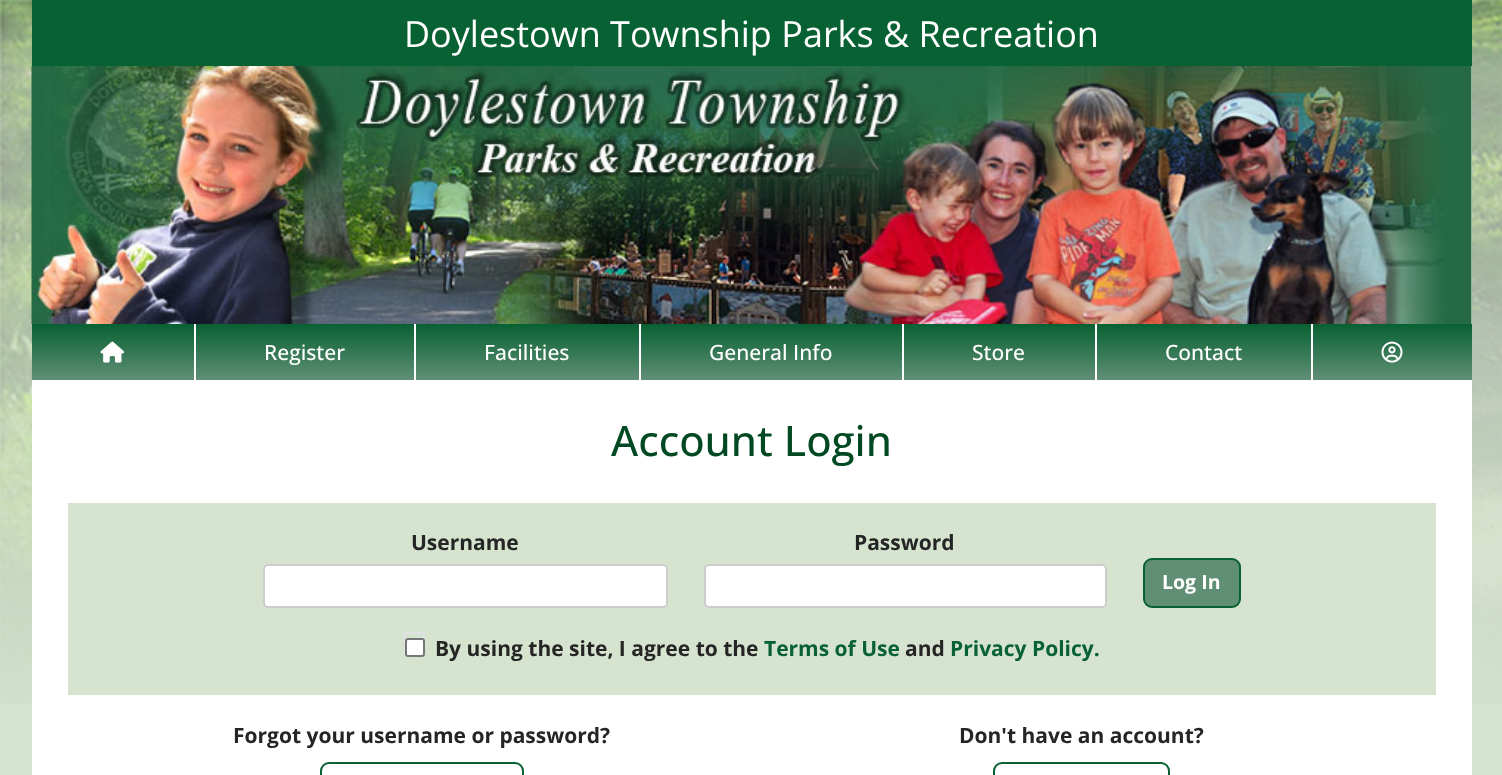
<!DOCTYPE html>
<meta charset="utf-8">
<style>body { margin: 0 } canvas { display: block }</style>
<canvas id="canvas" width="1502" height="775"></canvas>
<img id="img1" src="images/1.png" hidden>
<img id="img2" src="images/2.png" hidden>
<img id="img3" src="images/3.png" hidden>
<img id="img4" src="images/4.png" hidden>
<script>
window.onload = function () {
    const canvas = document.getElementById('canvas');
    const context = canvas.getContext('2d');
    context.miterLimit = 4;
    context.fontKerning = 'normal';
    let gradient;

    context.fillStyle = 'rgb(214, 228, 207)';
    context.fillRect(0, 0, 1502, 775);
    context.drawImage(document.getElementById('img1'), 0, 0, 1502, 704);
    context.fillStyle = 'rgb(255, 255, 255)';
    context.fillRect(32, 66, 1440, 709);
    context.fillStyle = 'rgb(8, 97, 50)';
    context.fillRect(32, 0, 1440, 66);
    context.drawImage(document.getElementById('img2'), 31, 66, 1441, 258);
    gradient = context.createLinearGradient(752, 324, 752, 380);
    gradient.addColorStop(0, 'rgb(8, 97, 50)');
    gradient.addColorStop(1, 'rgb(96, 143, 118)');
    context.fillStyle = gradient;
    context.fillRect(32, 324, 1440, 56);
    context.fillStyle = 'rgb(255, 255, 255)';
    context.fillRect(194, 324, 2, 56);
    context.drawImage(document.getElementById('img3'), 100, 341, 25, 22);
    context.fillRect(414, 324, 2, 56);
    context.fillRect(639, 324, 2, 56);
    context.fillRect(902, 324, 2, 56);
    context.fillRect(1095, 324, 2, 56);
    context.fillRect(1311, 324, 2, 56);
    context.drawImage(document.getElementById('img4'), 1381, 341, 22, 22);
    context.fillStyle = 'rgb(214, 228, 207)';
    context.fillRect(68, 503, 1368, 192);
    context.fillStyle = 'rgb(255, 255, 255)';
    context.beginPath();
    context.roundRect(264, 565, 403, 42, 4);
    context.fill();
    context.strokeStyle = 'rgb(204, 204, 204)';
    context.lineWidth = 2;
    context.stroke();
    context.beginPath();
    context.roundRect(705, 565, 401, 42, 4);
    context.fill();
    context.stroke();
    context.fillStyle = 'rgb(96, 143, 118)';
    context.beginPath();
    context.roundRect(1144, 559, 96, 48, 8);
    context.fill();
    context.strokeStyle = 'rgb(8, 97, 50)';
    context.stroke();
    context.strokeStyle = 'rgb(222, 226, 230)';
    context.strokeRect(405, 633, 19, 19);
    context.fillStyle = 'rgb(255, 255, 255)';
    context.beginPath();
    context.roundRect(406, 639, 18, 17, 2);
    context.fill();
    context.strokeStyle = 'rgb(118, 118, 118)';
    context.stroke();
    context.beginPath();
    context.roundRect(321, 763, 202, 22, 8);
    context.strokeStyle = 'rgb(8, 97, 50)';
    context.stroke();
    context.beginPath();
    context.roundRect(994, 763, 175, 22, 8);
    context.stroke();
    context.font = '36px Open Sans';
    context.fillText('Doylestown Township Parks & Recreation', 404, 47);
    context.font = '500 21px Open Sans';
    context.fillText('Register', 264, 360);
    context.fillText('Facilities', 484, 360);
    context.fillText('General Info', 709, 360);
    context.fillText('Store', 972, 360);
    context.fillText('Contact', 1165, 360);
    context.font = '500 42px Open Sans';
    context.fillStyle = 'rgb(1, 73, 35)';
    context.fillText('Account Login', 611, 456);
    context.font = 'bold 21px Open Sans';
    context.fillStyle = 'rgb(37, 37, 37)';
    context.fillText('Username', 411, 550);
    context.fillText('Password', 854, 550);
    context.font = 'bold 19.5px Open Sans';
    context.fillStyle = 'rgb(255, 255, 255)';
    context.fillText('Log In', 1162, 589);
    context.font = 'bold 21px Open Sans';
    context.fillStyle = 'rgb(37, 37, 37)';
    context.fillText('By using the site, I agree to the', 435, 656);
    context.fillStyle = 'rgb(8, 97, 50)';
    context.fillText('Terms of Use', 764, 656);
    context.fillStyle = 'rgb(37, 37, 37)';
    context.fillText('and', 905, 656);
    context.fillStyle = 'rgb(8, 97, 50)';
    context.fillText('Privacy Policy.', 950, 656);
    context.fillStyle = 'rgb(37, 37, 37)';
    context.fillText('Forgot your username or password?', 233, 743);
    context.fillText('Don\'t have an account?', 959, 743);
};
</script>
